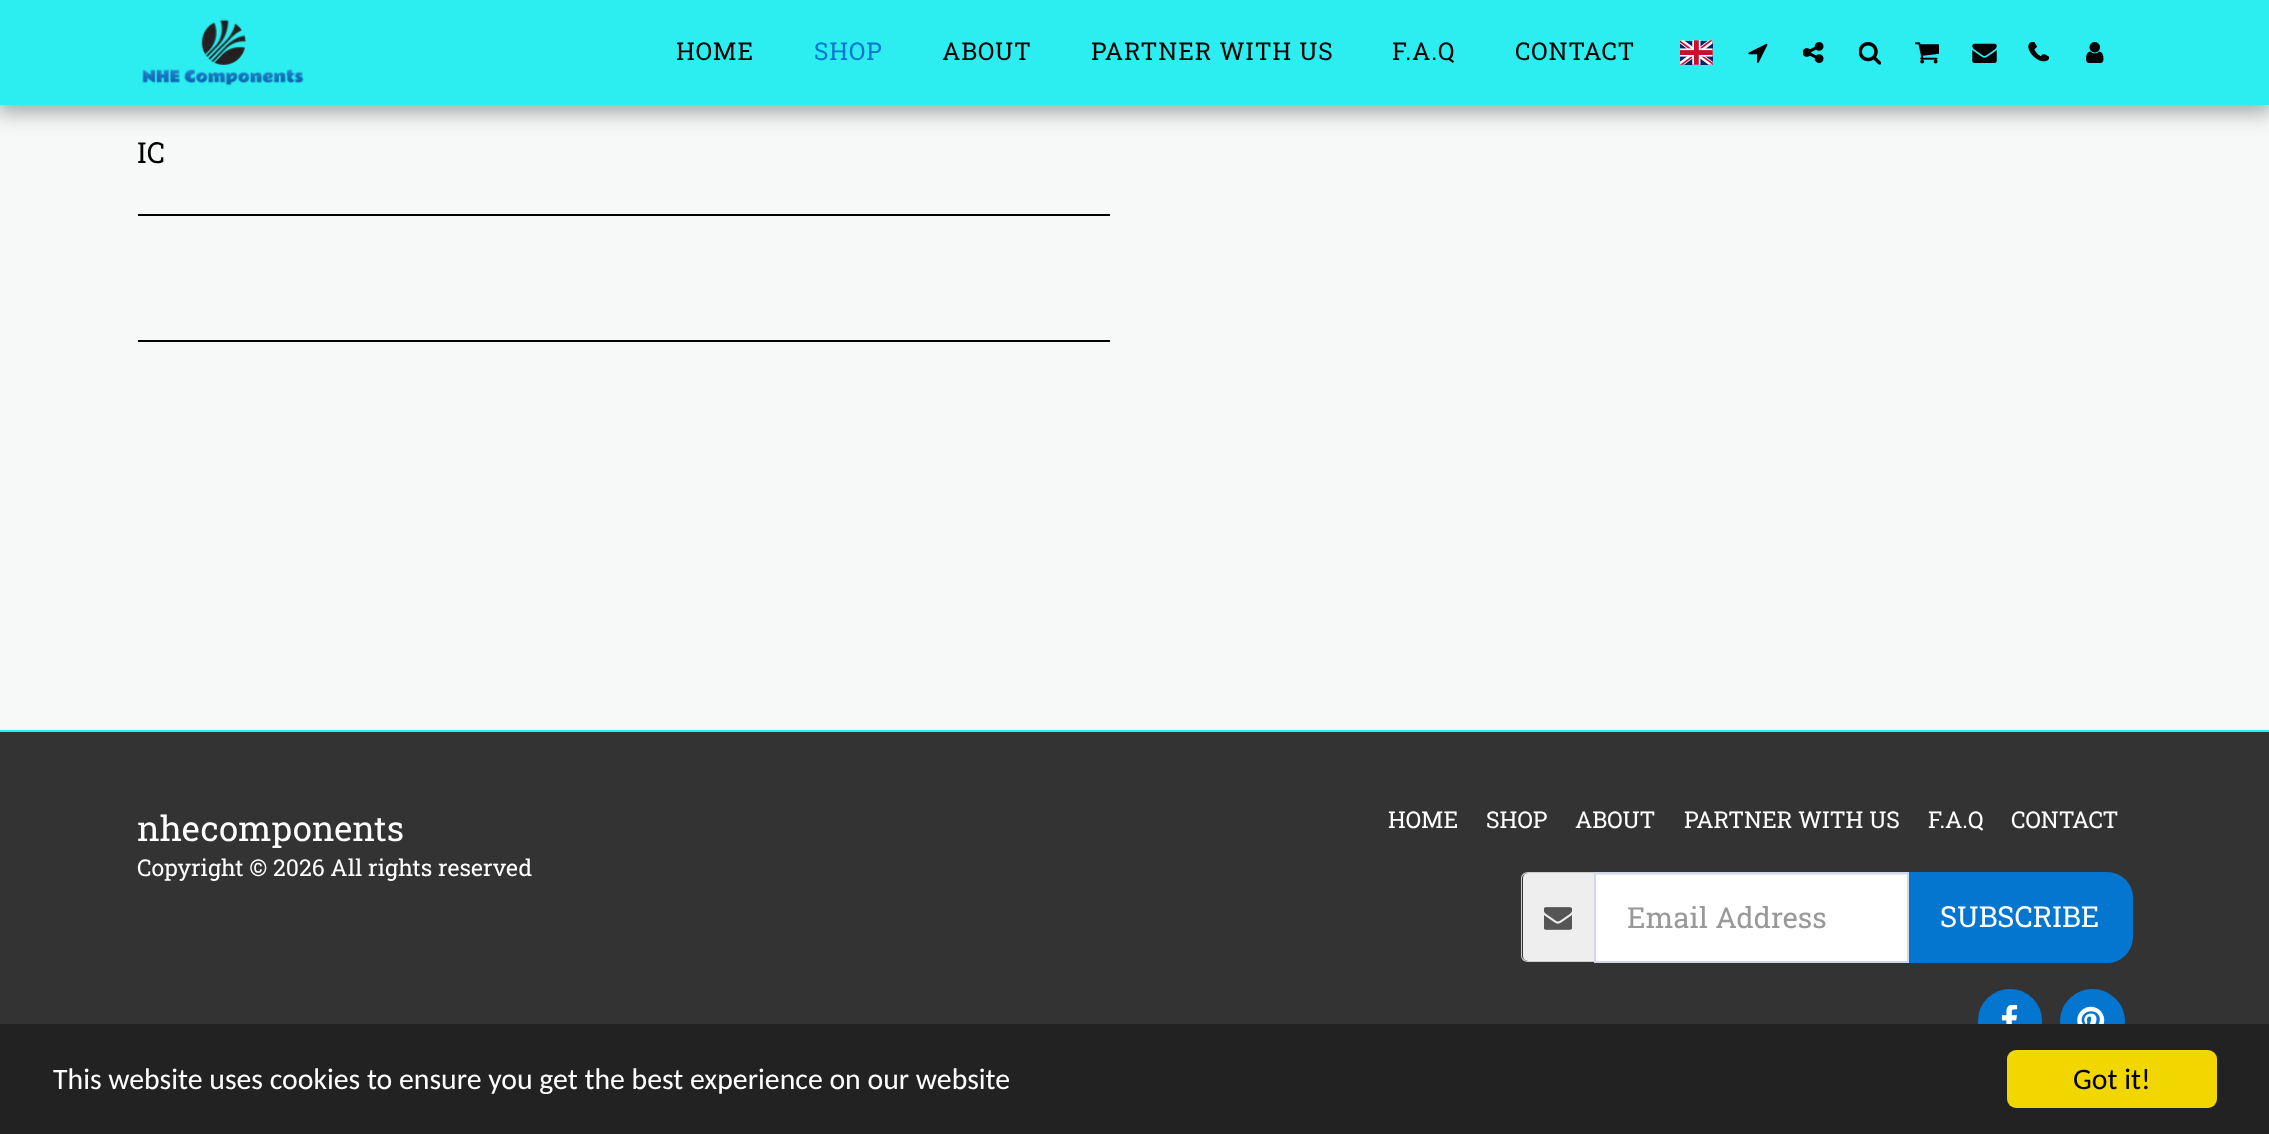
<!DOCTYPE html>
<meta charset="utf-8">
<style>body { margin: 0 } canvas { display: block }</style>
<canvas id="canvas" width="2269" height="1134"></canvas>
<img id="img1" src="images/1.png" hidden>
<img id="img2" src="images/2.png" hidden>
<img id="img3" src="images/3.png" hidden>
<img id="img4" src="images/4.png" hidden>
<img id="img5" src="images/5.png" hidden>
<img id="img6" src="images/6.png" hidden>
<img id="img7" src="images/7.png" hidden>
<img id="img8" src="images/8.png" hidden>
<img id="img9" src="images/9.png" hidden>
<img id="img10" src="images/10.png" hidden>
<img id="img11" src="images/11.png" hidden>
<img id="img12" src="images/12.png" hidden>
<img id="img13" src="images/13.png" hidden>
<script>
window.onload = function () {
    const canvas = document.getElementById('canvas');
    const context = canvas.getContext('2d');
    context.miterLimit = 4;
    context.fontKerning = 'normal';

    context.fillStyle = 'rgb(247, 249, 248)';
    context.fillRect(0, 0, 2269, 1134);
    context.fillStyle = 'rgba(0, 0, 0, 0.35)';
    context.filter = 'blur(10.5px)';
    context.beginPath();
    context.rect(-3, 0, 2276, 112);
    context.fill();
    context.filter = 'none';
    context.fillStyle = 'rgb(44, 238, 240)';
    context.fillRect(0, 0, 2269, 105);
    context.drawImage(document.getElementById('img1'), 142, 19, 162, 67);
    context.drawImage(document.getElementById('img2'), 1680, 40, 33, 25);
    context.drawImage(document.getElementById('img3'), 1748, 43, 20, 20);
    context.drawImage(document.getElementById('img4'), 1803, 42, 21, 21);
    context.drawImage(document.getElementById('img5'), 1859, 42, 22, 23);
    context.drawImage(document.getElementById('img6'), 1915, 42, 24, 22);
    context.drawImage(document.getElementById('img7'), 1972, 43, 25, 20);
    context.drawImage(document.getElementById('img8'), 2031, 42, 18, 20);
    context.drawImage(document.getElementById('img9'), 2028, 42, 16, 20);
    context.drawImage(document.getElementById('img10'), 2086, 42, 18, 21);
    context.fillStyle = 'rgb(0, 0, 0)';
    context.fillRect(138, 214, 972, 2);
    context.fillRect(138, 340, 972, 2);
    context.fillStyle = 'rgb(51, 51, 51)';
    context.fillRect(0, 732, 2269, 292);
    context.fillStyle = 'rgb(44, 238, 240)';
    context.fillRect(0, 730, 2269, 2);
    context.fillStyle = 'rgb(238, 238, 238)';
    context.beginPath();
    context.roundRect(1523, 873, 71, 88, [5, 0, 0, 5]);
    context.fill();
    context.fillStyle = 'rgb(204, 204, 204)';
    context.beginPath();
    context.moveTo(1528, 872);
    context.lineTo(1594, 872);
    context.lineTo(1594, 962);
    context.lineTo(1528, 962);
    context.bezierCurveTo(1524, 962, 1521, 959, 1521, 956);
    context.lineTo(1521, 878);
    context.bezierCurveTo(1521, 875, 1524, 872, 1528, 872);
    context.closePath();
    context.moveTo(1528, 873);
    context.lineTo(1594, 873);
    context.lineTo(1594, 961);
    context.lineTo(1528, 961);
    context.bezierCurveTo(1525, 961, 1522, 958, 1522, 956);
    context.lineTo(1522, 878);
    context.bezierCurveTo(1522, 876, 1525, 873, 1528, 873);
    context.closePath();
    context.fill('evenodd');
    context.drawImage(document.getElementById('img11'), 1544, 907, 28, 23);
    context.fillStyle = 'rgb(255, 255, 255)';
    context.fillRect(1596, 875, 311, 86);
    context.fillStyle = 'rgb(236, 236, 236)';
    context.fillRect(1596, 874, 312, 1);
    context.fillStyle = 'rgb(4, 118, 208)';
    context.beginPath();
    context.roundRect(1909, 873, 223, 89, [0, 25, 25, 0]);
    context.fill();
    context.strokeStyle = 'rgb(4, 118, 208)';
    context.lineWidth = 2;
    context.stroke();
    context.strokeStyle = 'rgb(212, 215, 229)';
    context.strokeRect(1595, 873, 313, 89);
    context.beginPath();
    context.roundRect(1979, 990, 62, 63, 31);
    context.fill();
    context.strokeStyle = 'rgb(4, 118, 208)';
    context.stroke();
    context.drawImage(document.getElementById('img12'), 2001, 1005, 17, 19);
    context.beginPath();
    context.arc(2092.5, 1021.5, 31.5, 0, 2 * Math.PI);
    context.fill();
    context.stroke();
    context.drawImage(document.getElementById('img13'), 2077, 1006, 28, 18);
    context.fillStyle = 'rgb(34, 34, 34)';
    context.fillRect(0, 1024, 2269, 110);
    context.fillStyle = 'rgb(241, 214, 0)';
    context.beginPath();
    context.roundRect(2007, 1050, 210, 58, 9);
    context.fill();
    context.letterSpacing = '0.9px';
    context.font = '24.5px Roboto Slab';
    context.fillStyle = 'rgb(0, 0, 0)';
    context.fillText('HOME', 676, 60);
    context.fillStyle = 'rgb(4, 118, 208)';
    context.fillText('SHOP', 814, 60);
    context.fillStyle = 'rgb(0, 0, 0)';
    context.fillText('ABOUT', 942, 60);
    context.fillText('PARTNER WITH US', 1091, 60);
    context.fillText('F.A.Q', 1392, 60);
    context.fillText('CONTACT', 1515, 60);
    context.letterSpacing = '0px';
    context.font = '29px Roboto Slab';
    context.fillText('IC', 137, 163);
    context.font = '34.75px Roboto Slab';
    context.fillStyle = 'rgb(255, 255, 255)';
    context.fillText('nhecomponents', 137, 841);
    context.font = '23.1px Roboto Slab';
    context.fillText('Copyright © 2026 All rights reserved', 137, 876);
    context.fillText('HOME', 1388, 828);
    context.fillText('SHOP', 1486, 828);
    context.fillText('ABOUT', 1575, 828);
    context.fillText('PARTNER WITH US', 1684, 828);
    context.fillText('F.A.Q', 1928, 828);
    context.fillText('CONTACT', 2011, 828);
    context.font = '29px Roboto Slab';
    context.fillStyle = 'rgb(153, 153, 153)';
    context.fillText('Email Address', 1627, 928);
    context.fillStyle = 'rgb(255, 255, 255)';
    context.fillText('SUBSCRIBE', 1940, 927);
    context.font = '29.75px Carlito';
    context.fillText('This website uses cookies to ensure you get the best experience on our website', 53, 1089);
    context.fillStyle = 'rgb(0, 0, 0)';
    context.fillText('Got it!', 2073, 1089);
};
</script>
